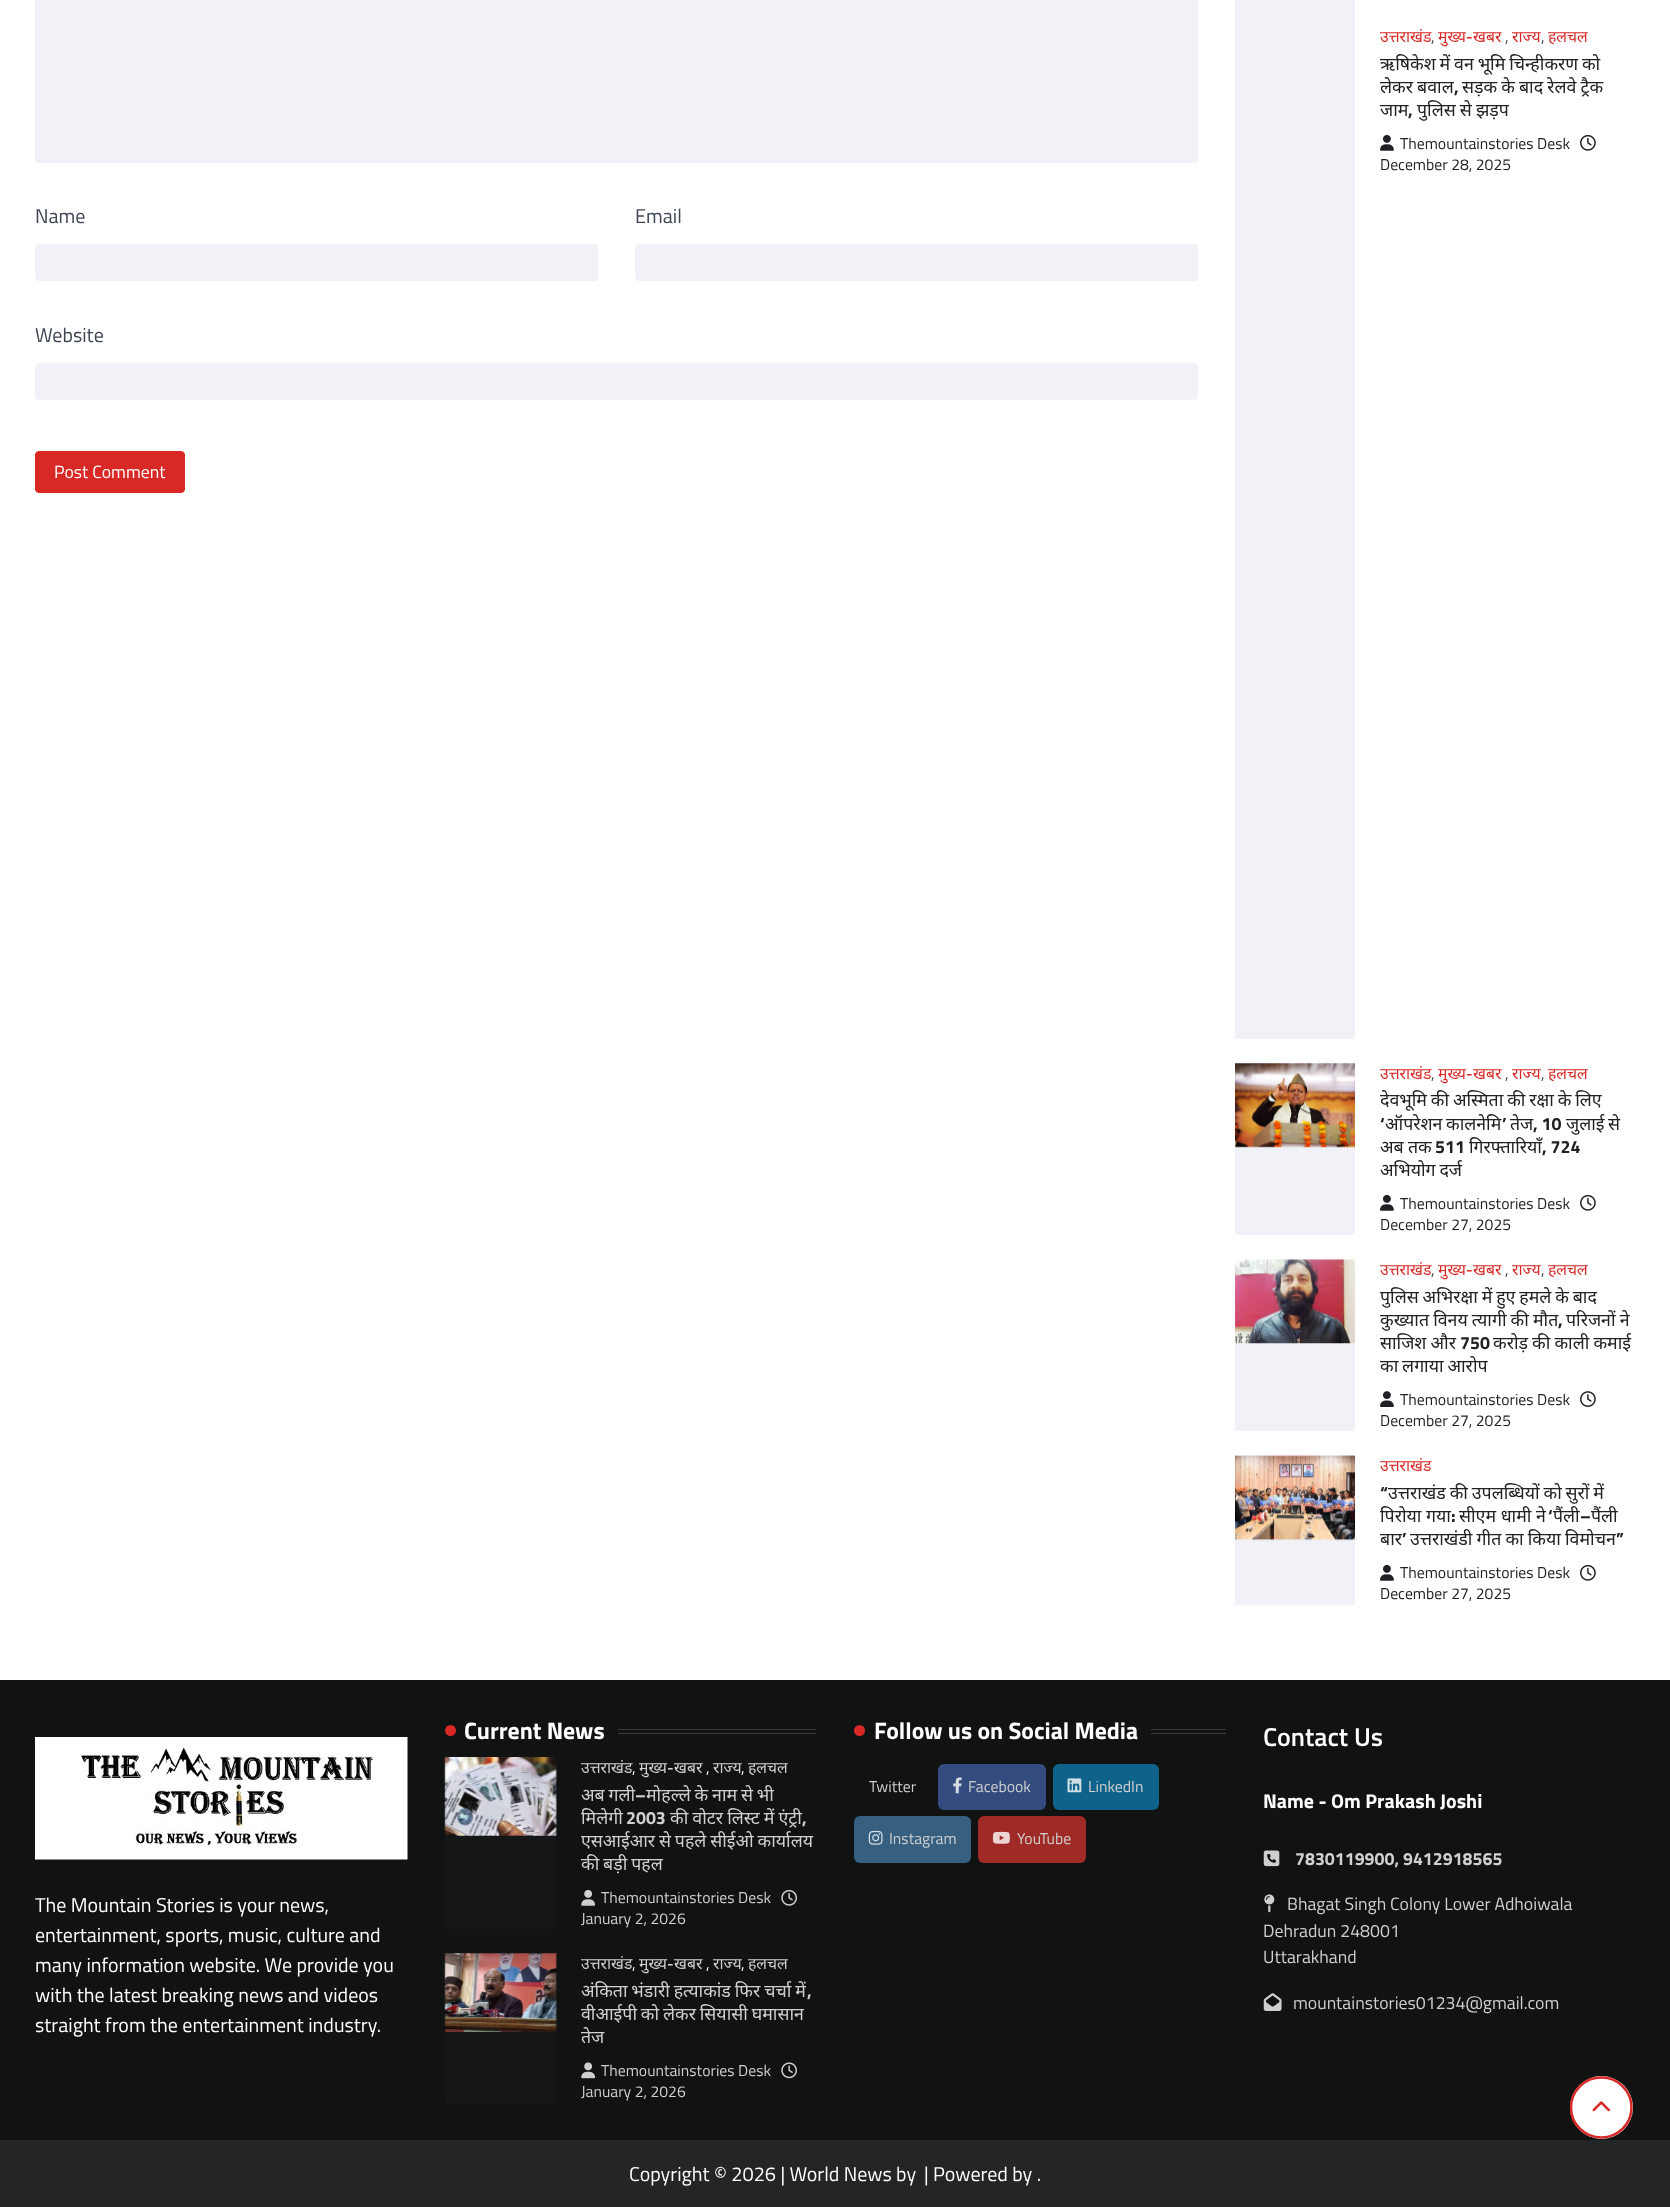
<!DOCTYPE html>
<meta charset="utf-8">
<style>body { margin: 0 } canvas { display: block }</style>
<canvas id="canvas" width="1670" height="2207"></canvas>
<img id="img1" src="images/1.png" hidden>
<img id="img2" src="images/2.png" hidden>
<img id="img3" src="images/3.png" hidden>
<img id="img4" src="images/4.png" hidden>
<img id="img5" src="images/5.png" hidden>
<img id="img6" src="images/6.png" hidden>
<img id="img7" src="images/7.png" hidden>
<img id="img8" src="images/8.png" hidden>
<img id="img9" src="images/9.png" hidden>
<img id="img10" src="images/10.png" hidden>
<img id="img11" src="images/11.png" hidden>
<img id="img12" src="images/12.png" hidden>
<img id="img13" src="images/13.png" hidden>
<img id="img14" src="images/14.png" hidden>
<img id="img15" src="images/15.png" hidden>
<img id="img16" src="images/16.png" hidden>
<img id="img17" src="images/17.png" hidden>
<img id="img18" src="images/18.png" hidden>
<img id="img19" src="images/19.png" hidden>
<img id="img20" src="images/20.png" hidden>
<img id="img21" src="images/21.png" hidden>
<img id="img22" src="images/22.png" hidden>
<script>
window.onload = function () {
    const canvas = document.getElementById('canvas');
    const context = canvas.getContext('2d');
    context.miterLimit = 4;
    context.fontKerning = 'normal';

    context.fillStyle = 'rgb(255, 255, 255)';
    context.fillRect(0, 0, 1670, 2207);
    context.fillStyle = 'rgb(240, 242, 247)';
    context.beginPath();
    context.roundRect(35, -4, 1163, 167, 4);
    context.fill();
    context.beginPath();
    context.roundRect(35, 244, 563, 37, 4);
    context.fill();
    context.beginPath();
    context.roundRect(635, 244, 563, 37, 4);
    context.fill();
    context.beginPath();
    context.roundRect(35, 363, 1163, 37, 4);
    context.fill();
    context.fillStyle = 'rgb(216, 41, 38)';
    context.beginPath();
    context.roundRect(35.5, 451.5, 149, 41, 3.5);
    context.fill();
    context.strokeStyle = 'rgb(216, 41, 38)';
    context.stroke();
    context.fillStyle = 'rgb(240, 242, 247)';
    context.fillRect(1235, 0, 120, 1039);
    context.drawImage(document.getElementById('img1'), 1380, 134, 14, 17);
    context.drawImage(document.getElementById('img2'), 1580, 134, 16, 17);
    context.fillRect(1235, 1146, 120, 89);
    context.drawImage(document.getElementById('img3'), 1235, 1063, 120, 85);
    context.drawImage(document.getElementById('img1'), 1380, 1194, 14, 17);
    context.drawImage(document.getElementById('img2'), 1580, 1194, 16, 17);
    context.fillRect(1235, 1260, 120, 171);
    context.drawImage(document.getElementById('img4'), 1235, 1259, 120, 85);
    context.drawImage(document.getElementById('img5'), 1380, 1391, 14, 16);
    context.drawImage(document.getElementById('img6'), 1580, 1391, 16, 16);
    context.fillRect(1235, 1456, 120, 149);
    context.drawImage(document.getElementById('img7'), 1235, 1455, 120, 86);
    context.drawImage(document.getElementById('img1'), 1380, 1564, 14, 17);
    context.drawImage(document.getElementById('img2'), 1580, 1564, 16, 17);
    context.fillStyle = 'rgb(17, 18, 18)';
    context.fillRect(0, 1680, 1670, 460);
    context.drawImage(document.getElementById('img8'), 35, 1737, 373, 123);
    context.fillStyle = 'rgb(216, 41, 38)';
    context.beginPath();
    context.arc(450.5, 1730.5, 5.5, 0, 2 * Math.PI);
    context.fill();
    context.fillStyle = 'rgb(58, 59, 59)';
    context.fillRect(618, 1729, 198, 1);
    context.fillRect(618, 1733, 198, 1);
    context.fillStyle = 'rgb(21, 22, 24)';
    context.fillRect(445, 1758, 111, 171);
    context.drawImage(document.getElementById('img9'), 444, 1757, 113, 79);
    context.drawImage(document.getElementById('img10'), 581, 1889, 15, 17);
    context.drawImage(document.getElementById('img11'), 781, 1889, 16, 17);
    context.fillRect(445, 1954, 111, 149);
    context.drawImage(document.getElementById('img12'), 444, 1953, 113, 79);
    context.drawImage(document.getElementById('img13'), 581, 2062, 15, 17);
    context.drawImage(document.getElementById('img14'), 781, 2062, 16, 17);
    context.fillStyle = 'rgb(216, 41, 38)';
    context.beginPath();
    context.arc(859.5, 1730.5, 5.5, 0, 2 * Math.PI);
    context.fill();
    context.fillStyle = 'rgb(58, 59, 59)';
    context.fillRect(1151, 1729, 75, 1);
    context.fillRect(1151, 1733, 75, 1);
    context.fillStyle = 'rgb(51, 75, 126)';
    context.beginPath();
    context.roundRect(938, 1764, 108, 46, 6);
    context.fill();
    context.drawImage(document.getElementById('img15'), 953, 1777, 9, 17);
    context.fillStyle = 'rgb(15, 98, 138)';
    context.beginPath();
    context.roundRect(1053, 1764, 106, 46, 6);
    context.fill();
    context.drawImage(document.getElementById('img16'), 1067, 1778, 15, 15);
    context.fillStyle = 'rgb(54, 95, 128)';
    context.beginPath();
    context.roundRect(854, 1816, 117, 47, 6);
    context.fill();
    context.drawImage(document.getElementById('img17'), 868, 1830, 15, 15);
    context.fillStyle = 'rgb(160, 42, 38)';
    context.beginPath();
    context.roundRect(978, 1816, 108, 47, 6);
    context.fill();
    context.drawImage(document.getElementById('img18'), 992, 1831, 18, 13);
    context.drawImage(document.getElementById('img19'), 1263, 1850, 17, 17);
    context.drawImage(document.getElementById('img20'), 1264, 1894, 11, 19);
    context.drawImage(document.getElementById('img21'), 1263, 1993, 19, 18);
    context.fillStyle = 'rgb(36, 37, 37)';
    context.fillRect(0, 2140, 1670, 67);
    context.fillStyle = 'rgb(255, 255, 255)';
    context.beginPath();
    context.arc(1601.5, 2107.5, 31.5, 0, 2 * Math.PI);
    context.fill();
    context.drawImage(document.getElementById('img22'), 1592, 2101, 18, 11);
    context.save();
    context.beginPath();
    context.rect(1570, 2076, 63, 63);
    context.clip();
    context.beginPath();
    context.moveTo(1601.5, 2077.5);
    context.bezierCurveTo(1618, 2077.5, 1631.5, 2091, 1631.5, 2107.5);
    context.bezierCurveTo(1631.5, 2124, 1618, 2137.5, 1601.5, 2137.5);
    context.bezierCurveTo(1584.5, 2137.5, 1571, 2124, 1571, 2107.5);
    context.bezierCurveTo(1571, 2091, 1584.5, 2077.5, 1601.5, 2077.5);
    context.lineWidth = 2.5;
    context.stroke();
    context.restore();
    context.font = '20px Titillium Web';
    context.fillStyle = 'rgb(61, 68, 82)';
    context.fillText('Name', 35, 223);
    context.fillText('Email', 635, 223);
    context.fillText('Website', 35, 342);
    context.font = '17.75px Titillium Web';
    context.fillStyle = 'rgb(255, 255, 255)';
    context.fillText('Post Comment', 54, 478);
    context.font = '15.75px Noto Sans';
    context.fillStyle = 'rgb(216, 41, 38)';
    context.fillText('उत्तराखंड', 1380, 42);
    context.font = '600 15.75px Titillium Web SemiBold';
    context.fillText('-', 1466, 42);
    context.font = '15.75px Noto Sans';
    context.fillText('खबर', 1473, 42);
    context.fillText('राज्य', 1512, 42);
    context.fillText('हलचल', 1548, 42);
    context.font = '15.75px Titillium Web';
    context.fillStyle = 'rgb(61, 68, 82)';
    context.fillText(',', 1431, 42);
    context.font = '15.75px Noto Sans';
    context.fillStyle = 'rgb(216, 41, 38)';
    context.fillText('मुख्य', 1438, 42);
    context.font = '15.75px Titillium Web';
    context.fillStyle = 'rgb(61, 68, 82)';
    context.fillText(',', 1505, 42);
    context.fillText(',', 1541, 42);
    context.wordSpacing = '-0.75px';
    context.font = '17.75px Noto Sans';
    context.fillStyle = 'rgb(32, 33, 36)';
    context.fillText('ऋषिकेश में वन भूमि चिन्हीकरण को', 1380, 70);
    context.wordSpacing = '-0.5px';
    context.fillText('लेकर बवाल', 1380, 93);
    context.wordSpacing = '0px';
    context.font = 'bold 17.75px Titillium Web';
    context.fillText(',', 1454, 93);
    context.wordSpacing = '-0.5px';
    context.font = '17.75px Noto Sans';
    context.fillText('सड़क के बाद रेलवे ट्रैक', 1462, 93);
    context.wordSpacing = '0px';
    context.fillText('जाम', 1380, 116);
    context.font = 'bold 17.75px Titillium Web';
    context.fillText(',', 1408, 116);
    context.wordSpacing = '-0.5px';
    context.font = '17.75px Noto Sans';
    context.fillText('पुलिस से झड़प', 1417, 116);
    context.wordSpacing = '0px';
    context.font = '15.75px Titillium Web';
    context.fillText('Themountainstories Desk', 1400, 149);
    context.fillText('December 28, 2025', 1380, 170);
    context.font = '15.75px Noto Sans';
    context.fillStyle = 'rgb(216, 41, 38)';
    context.fillText('उत्तराखंड', 1380, 1079);
    context.font = '600 15.75px Titillium Web SemiBold';
    context.fillText('-', 1466, 1079);
    context.font = '15.75px Noto Sans';
    context.fillText('खबर', 1473, 1079);
    context.fillText('राज्य', 1512, 1079);
    context.fillText('हलचल', 1548, 1079);
    context.font = '15.75px Titillium Web';
    context.fillStyle = 'rgb(61, 68, 82)';
    context.fillText(',', 1431, 1079);
    context.font = '15.75px Noto Sans';
    context.fillStyle = 'rgb(216, 41, 38)';
    context.fillText('मुख्य', 1438, 1079);
    context.font = '15.75px Titillium Web';
    context.fillStyle = 'rgb(61, 68, 82)';
    context.fillText(',', 1505, 1079);
    context.fillText(',', 1541, 1079);
    context.wordSpacing = '-0.75px';
    context.font = '17.75px Noto Sans';
    context.fillStyle = 'rgb(32, 33, 36)';
    context.fillText('देवभूमि की अस्मिता की रक्षा के लिए', 1380, 1106);
    context.wordSpacing = '0px';
    context.font = 'bold 17.75px Titillium Web';
    context.fillText('‘', 1380, 1130);
    context.font = '17.75px Noto Sans';
    context.fillText('ऑपरेशन', 1385, 1130);
    context.fillText('कालनेमि', 1446, 1130);
    context.font = 'bold 17.75px Titillium Web';
    context.fillText('’', 1502, 1130);
    context.font = '17.75px Noto Sans';
    context.fillText('तेज', 1510, 1130);
    context.font = 'bold 17.75px Titillium Web';
    context.fillText(', 10', 1533, 1130);
    context.font = '17.75px Noto Sans';
    context.fillText('जुलाई', 1566, 1130);
    context.fillText('से', 1608, 1130);
    context.fillText('अब', 1380, 1153);
    context.fillText('तक', 1408, 1153);
    context.font = 'bold 17.75px Titillium Web';
    context.fillText('511', 1435, 1153);
    context.font = '17.75px Noto Sans';
    context.fillText('गिरफ्तारियाँ', 1469, 1153);
    context.font = 'bold 17.75px Titillium Web';
    context.fillText(', 724', 1542, 1153);
    context.wordSpacing = '-0.75px';
    context.font = '17.75px Noto Sans';
    context.fillText('अभियोग दर्ज', 1380, 1176);
    context.wordSpacing = '0px';
    context.font = '15.75px Titillium Web';
    context.fillText('Themountainstories Desk', 1400, 1209);
    context.fillText('December 27, 2025', 1380, 1230);
    context.font = '15.75px Noto Sans';
    context.fillStyle = 'rgb(216, 41, 38)';
    context.fillText('उत्तराखंड', 1380, 1275);
    context.font = '600 15.75px Titillium Web SemiBold';
    context.fillText('-', 1466, 1275);
    context.font = '15.75px Noto Sans';
    context.fillText('खबर', 1473, 1275);
    context.fillText('राज्य', 1512, 1275);
    context.fillText('हलचल', 1548, 1275);
    context.font = '15.75px Titillium Web';
    context.fillStyle = 'rgb(61, 68, 82)';
    context.fillText(',', 1431, 1275);
    context.font = '15.75px Noto Sans';
    context.fillStyle = 'rgb(216, 41, 38)';
    context.fillText('मुख्य', 1438, 1275);
    context.font = '15.75px Titillium Web';
    context.fillStyle = 'rgb(61, 68, 82)';
    context.fillText(',', 1505, 1275);
    context.fillText(',', 1541, 1275);
    context.wordSpacing = '-0.75px';
    context.font = '17.75px Noto Sans';
    context.fillStyle = 'rgb(32, 33, 36)';
    context.fillText('पुलिस अभिरक्षा में हुए हमले के बाद', 1380, 1303);
    context.wordSpacing = '-0.5px';
    context.fillText('कुख्यात विनय त्यागी की मौत', 1380, 1326);
    context.wordSpacing = '0px';
    context.font = 'bold 17.75px Titillium Web';
    context.fillText(',', 1558, 1326);
    context.wordSpacing = '-0.5px';
    context.font = '17.75px Noto Sans';
    context.fillText('परिजनों ने', 1566, 1326);
    context.fillText('साजिश और', 1380, 1349);
    context.wordSpacing = '0px';
    context.font = 'bold 17.75px Titillium Web';
    context.fillText('750', 1460, 1349);
    context.wordSpacing = '-0.5px';
    context.font = '17.75px Noto Sans';
    context.fillText('करोड़ की काली कमाई', 1493, 1349);
    context.wordSpacing = '-0.75px';
    context.fillText('का लगाया आरोप', 1380, 1372);
    context.wordSpacing = '0px';
    context.font = '15.75px Titillium Web';
    context.fillText('Themountainstories Desk', 1400, 1405);
    context.fillText('December 27, 2025', 1380, 1426);
    context.font = '15.75px Noto Sans';
    context.fillStyle = 'rgb(216, 41, 38)';
    context.fillText('उत्तराखंड', 1380, 1471);
    context.font = 'bold 17.75px Titillium Web';
    context.fillStyle = 'rgb(32, 33, 36)';
    context.fillText('“', 1380, 1499);
    context.wordSpacing = '-0.75px';
    context.font = '17.75px Noto Sans';
    context.fillText('उत्तराखंड की उपलब्धियों को सुरों में', 1388, 1499);
    context.wordSpacing = '0px';
    context.fillText('पिरोया गया', 1380, 1522);
    context.font = 'bold 17.75px Titillium Web';
    context.fillText('‘', 1548, 1522);
    context.fillText(':', 1451, 1522);
    context.font = '17.75px Noto Sans';
    context.fillText('सीएम धामी ने', 1459, 1522);
    context.fillText('पैंली', 1553, 1522);
    context.font = 'bold 17.75px Titillium Web';
    context.fillText('–', 1580, 1522);
    context.font = '17.75px Noto Sans';
    context.fillText('पैंली', 1591, 1522);
    context.fillText('बार', 1380, 1545);
    context.font = 'bold 17.75px Titillium Web';
    context.fillText('’', 1402, 1545);
    context.wordSpacing = '-0.5px';
    context.font = '17.75px Noto Sans';
    context.fillText('उत्तराखंडी गीत का किया विमोचन', 1410, 1545);
    context.wordSpacing = '0px';
    context.font = 'bold 17.75px Titillium Web';
    context.fillText('”', 1616, 1545);
    context.font = '15.75px Titillium Web';
    context.fillText('Themountainstories Desk', 1400, 1578);
    context.fillText('December 27, 2025', 1380, 1599);
    context.font = '20px Titillium Web';
    context.fillStyle = 'rgb(255, 255, 255)';
    context.fillText('The Mountain Stories is your news,', 35, 1912);
    context.fillText('entertainment, sports, music, culture and', 35, 1942);
    context.fillText('many information website. We provide you', 35, 1972);
    context.fillText('with the latest breaking news and videos', 35, 2002);
    context.fillText('straight from the entertainment industry.', 35, 2032);
    context.font = 'bold 23.75px Titillium Web';
    context.fillText('Current News', 464, 1739);
    context.font = '600 15.75px Titillium Web SemiBold';
    context.fillStyle = 'rgb(207, 208, 208)';
    context.fillText('-', 667, 1773);
    context.font = '15.75px Noto Sans';
    context.fillText('खबर', 674, 1773);
    context.fillText('राज्य', 713, 1773);
    context.fillText('हलचल', 748, 1773);
    context.font = '15.75px Titillium Web';
    context.fillStyle = 'rgb(255, 255, 255)';
    context.fillText(',', 632, 1773);
    context.font = '15.75px Noto Sans';
    context.fillStyle = 'rgb(207, 208, 208)';
    context.fillText('उत्तराखंड', 581, 1773);
    context.fillText('मुख्य', 639, 1773);
    context.font = '15.75px Titillium Web';
    context.fillStyle = 'rgb(255, 255, 255)';
    context.fillText(',', 706, 1773);
    context.fillText(',', 741, 1773);
    context.wordSpacing = '-0.75px';
    context.font = '17.75px Noto Sans';
    context.fillStyle = 'rgb(207, 208, 208)';
    context.fillText('अब गली', 581, 1801);
    context.wordSpacing = '0px';
    context.font = 'bold 17.75px Titillium Web';
    context.fillText('–', 635, 1801);
    context.wordSpacing = '-0.75px';
    context.font = '17.75px Noto Sans';
    context.fillText('मोहल्ले के नाम से भी', 646, 1801);
    context.wordSpacing = '0px';
    context.fillText('मिलेगी', 581, 1824);
    context.font = 'bold 17.75px Titillium Web';
    context.fillText('2003', 626, 1824);
    context.wordSpacing = '-0.5px';
    context.font = '17.75px Noto Sans';
    context.fillText('की वोटर लिस्ट में एंट्री', 670, 1824);
    context.wordSpacing = '0px';
    context.font = 'bold 17.75px Titillium Web';
    context.fillText(',', 802, 1824);
    context.wordSpacing = '-0.75px';
    context.font = '17.75px Noto Sans';
    context.fillText('एसआईआर से पहले सीईओ कार्यालय', 581, 1847);
    context.fillText('की बड़ी पहल', 581, 1870);
    context.wordSpacing = '0px';
    context.font = '15.75px Titillium Web';
    context.fillText('Themountainstories Desk', 601, 1903);
    context.fillText('January 2, 2026', 581, 1924);
    context.font = '600 15.75px Titillium Web SemiBold';
    context.fillText('-', 667, 1969);
    context.font = '15.75px Noto Sans';
    context.fillText('खबर', 674, 1969);
    context.fillText('राज्य', 713, 1969);
    context.fillText('हलचल', 748, 1969);
    context.font = '15.75px Titillium Web';
    context.fillStyle = 'rgb(255, 255, 255)';
    context.fillText(',', 632, 1969);
    context.font = '15.75px Noto Sans';
    context.fillStyle = 'rgb(207, 208, 208)';
    context.fillText('उत्तराखंड', 581, 1969);
    context.fillText('मुख्य', 639, 1969);
    context.font = '15.75px Titillium Web';
    context.fillStyle = 'rgb(255, 255, 255)';
    context.fillText(',', 706, 1969);
    context.fillText(',', 741, 1969);
    context.wordSpacing = '-0.75px';
    context.font = '17.75px Noto Sans';
    context.fillStyle = 'rgb(207, 208, 208)';
    context.fillText('अंकिता भंडारी हत्याकांड फिर चर्चा में', 581, 1997);
    context.wordSpacing = '0px';
    context.font = 'bold 17.75px Titillium Web';
    context.fillText(',', 807, 1997);
    context.wordSpacing = '-0.75px';
    context.font = '17.75px Noto Sans';
    context.fillText('वीआईपी को लेकर सियासी घमासान', 581, 2020);
    context.wordSpacing = '0px';
    context.fillText('तेज', 581, 2043);
    context.font = '15.75px Titillium Web';
    context.fillText('Themountainstories Desk', 601, 2076);
    context.fillText('January 2, 2026', 581, 2097);
    context.font = 'bold 23.75px Titillium Web';
    context.fillStyle = 'rgb(255, 255, 255)';
    context.fillText('Follow us on Social Media', 874, 1739);
    context.font = '15.75px Titillium Web';
    context.fillStyle = 'rgb(207, 208, 208)';
    context.fillText('Twitter', 869, 1792);
    context.fillText('Facebook', 968, 1792);
    context.fillText('LinkedIn', 1088, 1792);
    context.fillText('Instagram', 889, 1844);
    context.fillText('YouTube', 1017, 1844);
    context.font = '600 26px Titillium Web SemiBold';
    context.fillStyle = 'rgb(255, 255, 255)';
    context.fillText('Contact Us', 1263, 1746);
    context.font = 'bold 20px Titillium Web';
    context.fillText('Name - Om Prakash Joshi', 1263, 1808);
    context.font = 'bold 17.75px Titillium Web';
    context.fillStyle = 'rgb(207, 208, 208)';
    context.fillText('7830119900, 9412918565', 1295, 1865);
    context.font = '17.75px Titillium Web';
    context.fillText('Bhagat Singh Colony Lower Adhoiwala', 1287, 1910);
    context.fillText('Dehradun 248001', 1263, 1937);
    context.fillText('Uttarakhand', 1263, 1963);
    context.fillText('mountainstories01234@gmail.com', 1293, 2009);
    context.font = '20px Titillium Web';
    context.fillStyle = 'rgb(255, 255, 255)';
    context.fillText('Copyright © 2026 | World News by', 629, 2181);
    context.fillText('| Powered by .', 924, 2181);
};
</script>
